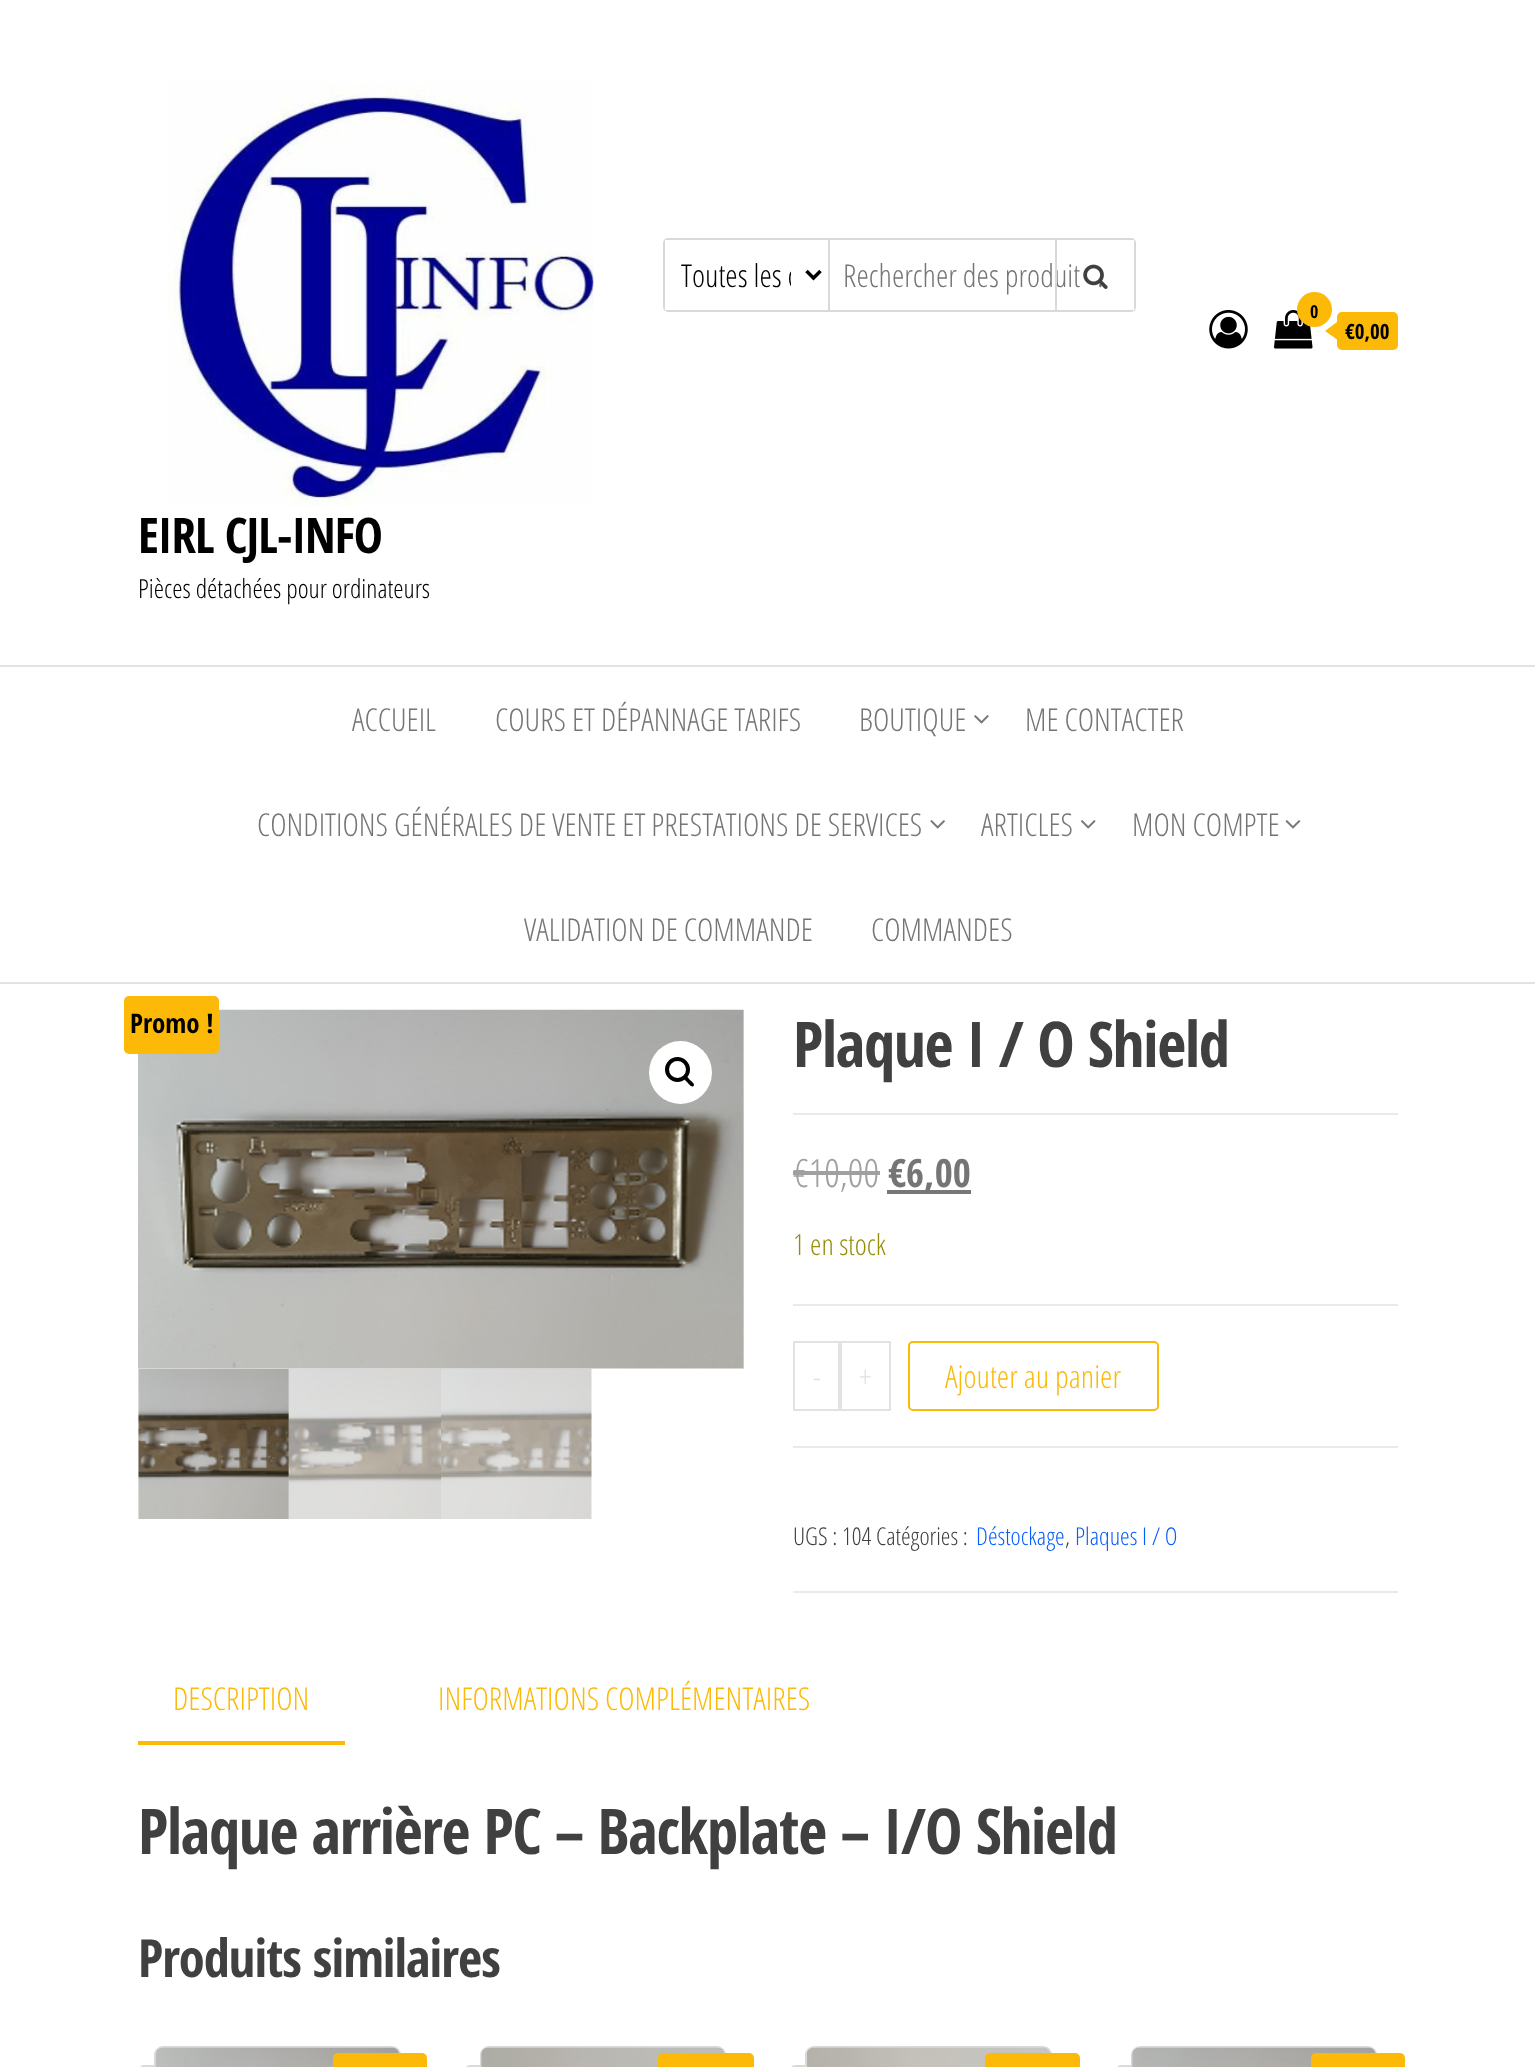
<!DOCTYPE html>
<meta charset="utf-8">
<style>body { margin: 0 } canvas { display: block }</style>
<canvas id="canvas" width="1535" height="2067"></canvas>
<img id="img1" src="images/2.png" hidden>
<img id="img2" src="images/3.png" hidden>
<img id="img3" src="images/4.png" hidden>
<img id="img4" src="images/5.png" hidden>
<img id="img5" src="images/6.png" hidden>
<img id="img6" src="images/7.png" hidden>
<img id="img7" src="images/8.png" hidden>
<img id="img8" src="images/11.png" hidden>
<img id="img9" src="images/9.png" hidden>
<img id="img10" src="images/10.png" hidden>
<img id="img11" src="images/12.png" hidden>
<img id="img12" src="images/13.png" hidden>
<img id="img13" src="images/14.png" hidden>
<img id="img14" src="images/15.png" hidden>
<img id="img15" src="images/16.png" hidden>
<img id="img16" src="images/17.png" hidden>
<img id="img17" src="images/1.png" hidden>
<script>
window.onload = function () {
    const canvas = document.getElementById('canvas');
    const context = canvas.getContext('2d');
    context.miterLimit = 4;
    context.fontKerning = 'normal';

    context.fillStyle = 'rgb(255, 255, 255)';
    context.fillRect(0, 0, 1535, 2067);
    context.beginPath();
    context.roundRect(664, 239, 471, 72, 4);
    context.strokeStyle = 'rgb(217, 217, 217)';
    context.lineWidth = 2;
    context.stroke();
    context.fillRect(665, 240, 3, 70);
    context.fillStyle = 'rgb(217, 217, 217)';
    context.fillRect(828, 240, 2, 70);
    context.beginPath();
    context.moveTo(806.5, 271);
    context.lineTo(813.5, 278);
    context.lineTo(820.5, 271);
    context.strokeStyle = 'rgb(0, 0, 0)';
    context.lineWidth = 3.5;
    context.stroke();
    context.fillStyle = 'rgb(255, 255, 255)';
    context.fillRect(1131, 240, 3, 70);
    context.drawImage(document.getElementById('img1'), 1209, 310, 39, 39);
    context.drawImage(document.getElementById('img2'), 1274, 310, 39, 39);
    context.fillStyle = 'rgb(253, 185, 7)';
    context.beginPath();
    context.arc(1314.5, 309.5, 17.5, 0, 2 * Math.PI);
    context.fill();
    context.beginPath();
    context.roundRect(1337, 312, 61, 38, 5);
    context.fill();
    context.beginPath();
    context.moveTo(1337, 322);
    context.lineTo(1337, 339.5);
    context.lineTo(1325, 331);
    context.closePath();
    context.fill();
    context.drawImage(document.getElementById('img3'), 168, 82, 426, 424);
    context.fillStyle = 'rgb(226, 226, 226)';
    context.fillRect(0, 665, 1535, 2);
    context.fillRect(0, 982, 1535, 2);
    context.drawImage(document.getElementById('img4'), 974, 715, 15, 9);
    context.drawImage(document.getElementById('img5'), 930, 820, 15, 9);
    context.drawImage(document.getElementById('img6'), 1080, 820, 16, 9);
    context.drawImage(document.getElementById('img7'), 1285, 820, 16, 9);
    context.drawImage(document.getElementById('img8'), 138, 1368, 151, 151);
    context.drawImage(document.getElementById('img9'), 138, 1009, 606, 360);
    context.drawImage(document.getElementById('img10'), 743, 1097, 1, 272);
    context.fillStyle = 'rgb(255, 255, 255)';
    context.beginPath();
    context.arc(680.5, 1072.5, 31.5, 0, 2 * Math.PI);
    context.fill();
    context.beginPath();
    context.arc(677.5, 1069.5, 10.5, 0, 2 * Math.PI);
    context.lineWidth = 4;
    context.stroke();
    context.fillStyle = 'rgb(0, 0, 0)';
    context.beginPath();
    context.moveTo(684, 1076);
    context.bezierCurveTo(686, 1074, 689, 1079, 690, 1080);
    context.bezierCurveTo(691, 1081, 695.5, 1084, 693.5, 1086);
    context.bezierCurveTo(691.5, 1088, 688.5, 1083.5, 687.5, 1082.5);
    context.bezierCurveTo(686.5, 1081.5, 682, 1078, 684, 1076);
    context.closePath();
    context.fill();
    context.drawImage(document.getElementById('img11'), 288, 1368, 153, 151);
    context.drawImage(document.getElementById('img12'), 441, 1368, 151, 151);
    context.fillStyle = 'rgb(253, 185, 7)';
    context.beginPath();
    context.roundRect(124, 996, 95, 58, 5);
    context.fill();
    context.fillStyle = 'rgb(234, 234, 234)';
    context.fillRect(793, 1113, 605, 2);
    context.fillStyle = 'rgb(160, 160, 160)';
    context.fillRect(793, 1171, 87, 4);
    context.fillStyle = 'rgb(119, 119, 119)';
    context.fillRect(887, 1190, 84, 4);
    context.fillStyle = 'rgb(234, 234, 234)';
    context.fillRect(793, 1304, 605, 2);
    context.fillRect(793, 1446, 605, 2);
    context.strokeStyle = 'rgb(226, 226, 226)';
    context.lineWidth = 2;
    context.strokeRect(794, 1342, 45, 68);
    context.strokeRect(841, 1342, 49, 68);
    context.beginPath();
    context.roundRect(909, 1342, 249, 68, 4);
    context.strokeStyle = 'rgb(253, 185, 7)';
    context.stroke();
    context.fillRect(793, 1591, 605, 2);
    context.fillStyle = 'rgb(253, 185, 7)';
    context.fillRect(138, 1741, 207, 4);
    context.beginPath();
    context.roundRect(139, 2066, 277, 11, 8);
    context.strokeStyle = 'rgb(217, 217, 217)';
    context.stroke();
    context.beginPath();
    context.roundRect(155, 2047, 245, 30, 8);
    context.stroke();
    context.drawImage(document.getElementById('img13'), 156, 2047, 243, 20);
    context.beginPath();
    context.roundRect(333, 2053, 94, 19, 5);
    context.fill();
    context.beginPath();
    context.roundRect(465, 2066, 276, 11, 8);
    context.stroke();
    context.beginPath();
    context.roundRect(481, 2047, 244, 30, 8);
    context.stroke();
    context.drawImage(document.getElementById('img14'), 481, 2047, 244, 20);
    context.beginPath();
    context.roundRect(658, 2053, 96, 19, 5);
    context.fill();
    context.beginPath();
    context.roundRect(790, 2066, 277, 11, 8);
    context.stroke();
    context.beginPath();
    context.roundRect(806, 2047, 245, 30, 8);
    context.stroke();
    context.drawImage(document.getElementById('img15'), 807, 2047, 243, 20);
    context.beginPath();
    context.roundRect(985, 2053, 95, 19, 5);
    context.fill();
    context.beginPath();
    context.roundRect(1116, 2066, 276, 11, 8);
    context.stroke();
    context.beginPath();
    context.roundRect(1132, 2047, 244, 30, 8);
    context.stroke();
    context.drawImage(document.getElementById('img16'), 1132, 2047, 244, 20);
    context.beginPath();
    context.roundRect(1311, 2053, 94, 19, 5);
    context.fill();
    context.save();
    context.beginPath();
    context.rect(681, 252, 110, 46);
    context.clip();
    context.font = '300 31.5px Open Sans Condensed';
    context.fillStyle = 'rgb(0, 0, 0)';
    context.fillText('Toutes les c', 681, 287);
    context.restore();
    context.font = '300 31.5px Open Sans Condensed';
    context.fillStyle = 'rgb(117, 117, 117)';
    context.fillText('Rechercher des produit', 843, 287);
    context.fillStyle = 'rgb(217, 217, 217)';
    context.fillRect(1055, 240, 2, 70);
    context.fillStyle = 'rgb(117, 117, 117)';
    context.fillText('.', 1097, 287);
    context.drawImage(document.getElementById('img17'), 1083, 264, 25, 25);
    context.font = 'bold 18px Open Sans Condensed';
    context.fillStyle = 'rgb(0, 0, 0)';
    context.fillText('0', 1310, 318);
    context.font = 'bold 21px Open Sans Condensed';
    context.fillText('€0,00', 1345, 339);
    context.letterSpacing = '-1px';
    context.font = 'bold 49px Open Sans Condensed';
    context.fillText('EIRL CJL-INFO', 138, 553);
    context.letterSpacing = '0px';
    context.font = '300 26.25px Open Sans Condensed';
    context.fillText('Pièces détachées pour ordinateurs', 138, 598);
    context.font = '300 31.5px Open Sans Condensed';
    context.fillStyle = 'rgb(117, 117, 117)';
    context.fillText('ACCUEIL', 352, 731);
    context.fillText('COURS ET DÉPANNAGE TARIFS', 495, 731);
    context.fillText('BOUTIQUE', 859, 731);
    context.fillText('ME CONTACTER', 1025, 731);
    context.fillText('CONDITIONS GÉNÉRALES DE VENTE ET PRESTATIONS DE SERVICES', 257, 836);
    context.fillText('ARTICLES', 981, 836);
    context.fillText('MON COMPTE', 1132, 836);
    context.fillText('VALIDATION DE COMMANDE', 524, 941);
    context.fillText('COMMANDES', 871, 941);
    context.font = 'bold 27px Open Sans Condensed';
    context.fillStyle = 'rgb(0, 0, 0)';
    context.fillText('Promo !', 130, 1033);
    context.letterSpacing = '-1.25px';
    context.font = 'bold 63px Open Sans Condensed';
    context.fillStyle = 'rgb(64, 64, 64)';
    context.fillText('Plaque I / O Shield', 793, 1067);
    context.letterSpacing = '0px';
    context.font = '300 39px Open Sans Condensed';
    context.fillStyle = 'rgb(160, 160, 160)';
    context.fillText('€10,00', 793, 1187);
    context.font = 'bold 39px Open Sans Condensed';
    context.fillStyle = 'rgb(117, 117, 117)';
    context.fillText('€6,00', 888, 1187);
    context.font = '300 29px Open Sans Condensed';
    context.fillStyle = 'rgb(149, 142, 9)';
    context.fillText('1 en stock', 793, 1255);
    context.font = '300 31.5px Open Sans Condensed';
    context.fillStyle = 'rgb(226, 226, 226)';
    context.fillText('-', 813, 1388);
    context.fillText('+', 859, 1388);
    context.fillStyle = 'rgb(253, 185, 7)';
    context.fillText('Ajouter au panier', 945, 1388);
    context.font = '300 24.5px Open Sans Condensed';
    context.fillStyle = 'rgb(64, 64, 64)';
    context.fillText('UGS : 104 Catégories :', 793, 1545);
    context.fillStyle = 'rgb(7, 92, 253)';
    context.fillText('Déstockage', 976, 1545);
    context.fillStyle = 'rgb(64, 64, 64)';
    context.fillText(',', 1065, 1545);
    context.fillStyle = 'rgb(7, 92, 253)';
    context.fillText('Plaques I / O', 1075, 1545);
    context.font = '300 31.5px Open Sans Condensed';
    context.fillStyle = 'rgb(253, 185, 7)';
    context.fillText('DESCRIPTION', 173, 1710);
    context.fillText('INFORMATIONS COMPLÉMENTAIRES', 438, 1710);
    context.letterSpacing = '-1.25px';
    context.font = 'bold 63px Open Sans Condensed';
    context.fillStyle = 'rgb(64, 64, 64)';
    context.fillText('Plaque arrière PC – Backplate – I/O Shield', 138, 1854);
    context.letterSpacing = '-1px';
    context.font = 'bold 52.5px Open Sans Condensed';
    context.fillText('Produits similaires', 138, 1977);
};
</script>
